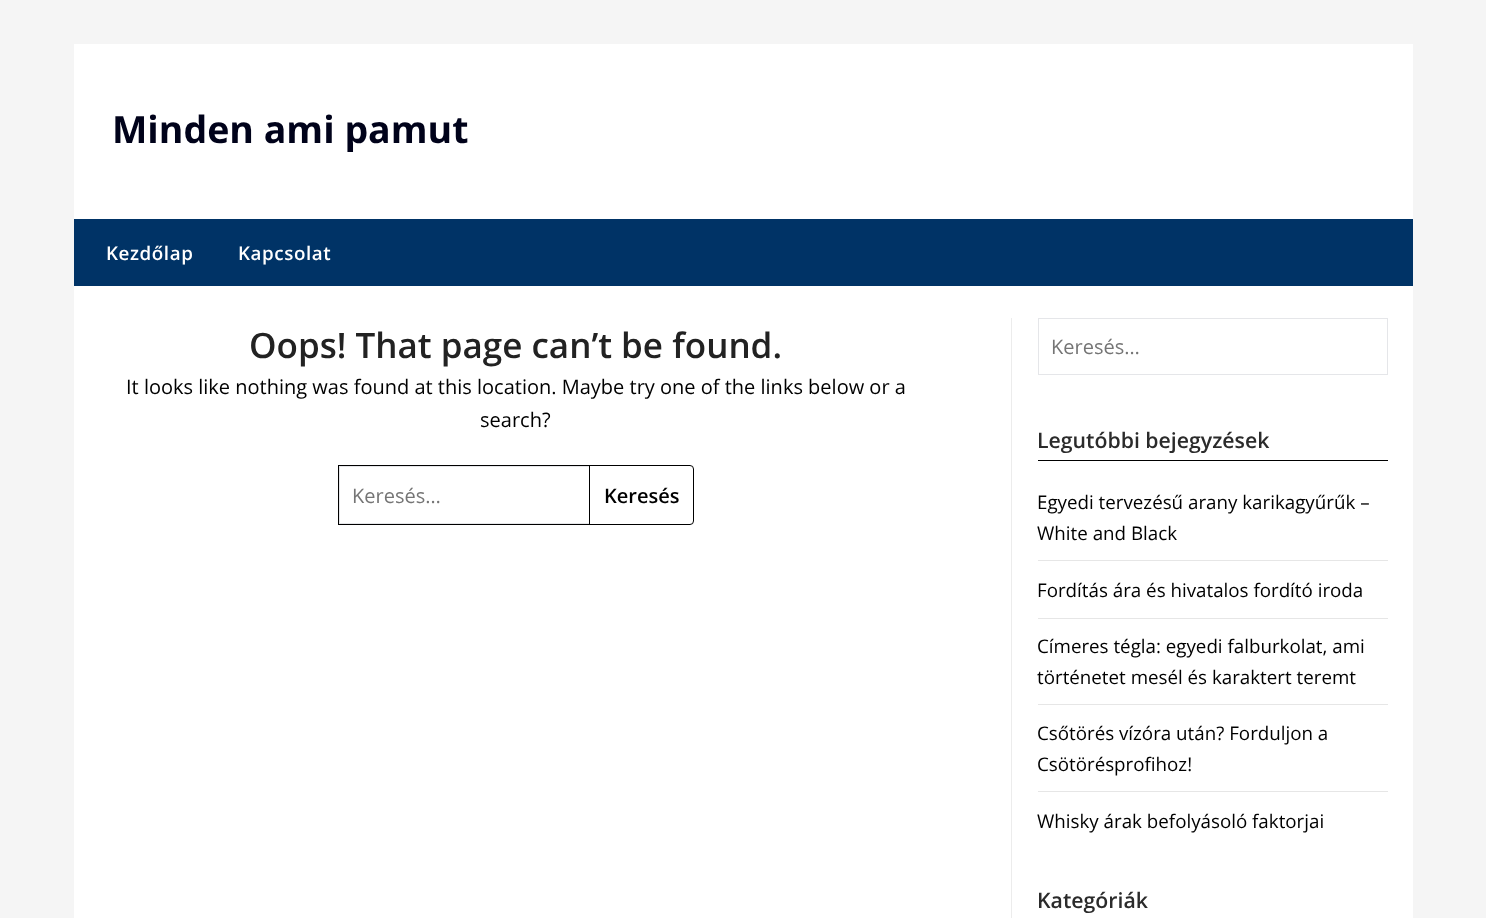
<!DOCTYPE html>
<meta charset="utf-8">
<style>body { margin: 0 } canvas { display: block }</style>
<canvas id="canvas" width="1486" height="918"></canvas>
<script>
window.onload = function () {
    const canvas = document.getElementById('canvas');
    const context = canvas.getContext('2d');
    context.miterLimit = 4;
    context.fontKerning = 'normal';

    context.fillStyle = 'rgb(245, 245, 245)';
    context.fillRect(0, 0, 1486, 918);
    context.fillStyle = 'rgb(255, 255, 255)';
    context.fillRect(74, 44, 1339, 175);
    context.fillStyle = 'rgb(0, 51, 102)';
    context.fillRect(74, 219, 1339, 67);
    context.fillStyle = 'rgb(255, 255, 255)';
    context.fillRect(74, 286, 1339, 632);
    context.fillStyle = 'rgb(0, 0, 0)';
    context.fillRect(338, 465, 252, 1);
    context.fillRect(338, 524, 252, 1);
    context.fillRect(338, 465, 1, 60);
    context.strokeStyle = 'rgb(229, 230, 233)';
    context.strokeRect(339.5, 466.5, 250, 57);
    context.beginPath();
    context.roundRect(589.5, 465.5, 104, 59, [0, 3.5, 3.5, 0]);
    context.strokeStyle = 'rgb(0, 0, 0)';
    context.stroke();
    context.fillStyle = 'rgb(236, 236, 236)';
    context.fillRect(1011, 318, 1, 600);
    context.strokeStyle = 'rgb(229, 230, 233)';
    context.strokeRect(1038.5, 318.5, 349, 56);
    context.fillStyle = 'rgb(0, 0, 0)';
    context.fillRect(1038, 460, 350, 1);
    context.fillStyle = 'rgb(230, 230, 230)';
    context.fillRect(1038, 560, 350, 1);
    context.fillRect(1038, 618, 350, 1);
    context.fillRect(1038, 704, 350, 1);
    context.fillRect(1038, 791, 350, 1);
    context.font = 'bold 37.5px Open Sans';
    context.fillStyle = 'rgb(0, 2, 26)';
    context.fillText('Minden ami pamut', 112, 143);
    context.letterSpacing = '0.6px';
    context.font = '600 18.75px Open Sans';
    context.fillStyle = 'rgb(255, 255, 255)';
    context.fillText('Kezdőlap', 106, 260);
    context.fillText('Kapcsolat', 238, 260);
    context.letterSpacing = '0px';
    context.font = '600 35px Open Sans';
    context.fillStyle = 'rgb(34, 34, 34)';
    context.fillText('Oops! That page can’t be found.', 249, 358);
    context.font = '20px Open Sans';
    context.fillStyle = 'rgb(0, 0, 0)';
    context.fillText('It looks like nothing was found at this location. Maybe try one of the links below or a', 126, 394);
    context.fillText('search?', 480, 427);
    context.fillStyle = 'rgb(117, 117, 117)';
    context.fillText('Keresés…', 352, 503);
    context.font = '600 20px Open Sans';
    context.fillStyle = 'rgb(0, 0, 0)';
    context.fillText('Keresés', 604, 503);
    context.font = '20px Open Sans';
    context.fillStyle = 'rgb(117, 117, 117)';
    context.fillText('Keresés…', 1051, 354);
    context.font = '600 21.25px Open Sans';
    context.fillStyle = 'rgb(43, 43, 43)';
    context.fillText('Legutóbbi bejegyzések', 1037, 448);
    context.font = '18.75px Open Sans';
    context.fillStyle = 'rgb(0, 0, 0)';
    context.fillText('Egyedi tervezésű arany karikagyűrűk –', 1037, 509);
    context.fillText('White and Black', 1037, 540);
    context.fillText('Fordítás ára és hivatalos fordító iroda', 1037, 597);
    context.fillText('Címeres tégla: egyedi falburkolat, ami', 1037, 653);
    context.fillText('történetet mesél és karaktert teremt', 1037, 684);
    context.fillText('Csőtörés vízóra után? Forduljon a', 1037, 740);
    context.fillText('Csötörésprofihoz!', 1037, 771);
    context.fillText('Whisky árak befolyásoló faktorjai', 1037, 828);
    context.font = '600 21.25px Open Sans';
    context.fillStyle = 'rgb(43, 43, 43)';
    context.fillText('Kategóriák', 1037, 908);
};
</script>
